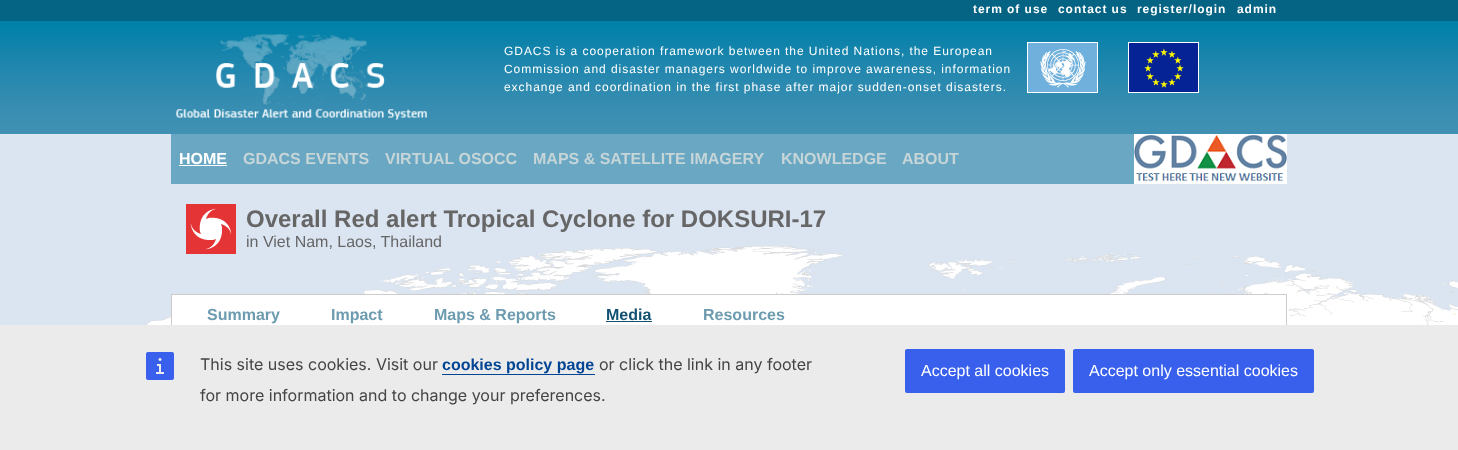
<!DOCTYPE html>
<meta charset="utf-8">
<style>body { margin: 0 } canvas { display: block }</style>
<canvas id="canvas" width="1458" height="450"></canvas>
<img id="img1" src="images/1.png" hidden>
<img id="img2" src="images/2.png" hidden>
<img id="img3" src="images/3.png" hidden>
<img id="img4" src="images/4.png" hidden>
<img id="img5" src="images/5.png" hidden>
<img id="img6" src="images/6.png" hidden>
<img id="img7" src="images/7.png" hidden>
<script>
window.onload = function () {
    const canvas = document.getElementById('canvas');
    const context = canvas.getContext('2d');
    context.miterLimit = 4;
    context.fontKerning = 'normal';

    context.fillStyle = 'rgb(255, 255, 255)';
    context.fillRect(0, 0, 1458, 450);
    context.drawImage(document.getElementById('img1'), 0, 134, 1458, 191);
    context.drawImage(document.getElementById('img2'), 0, 0, 1458, 134);
    context.drawImage(document.getElementById('img3'), 176, 33, 251, 87);
    context.drawImage(document.getElementById('img4'), 1027, 42, 172, 51);
    context.fillStyle = 'rgb(105, 167, 195)';
    context.fillRect(171, 134, 963, 50);
    context.fillStyle = 'rgb(255, 255, 255)';
    context.fillRect(179, 165, 48, 1);
    context.drawImage(document.getElementById('img5'), 1134, 134, 153, 50);
    context.drawImage(document.getElementById('img6'), 186, 204, 50, 50);
    context.fillRect(172, 295, 1100, 30);
    context.fillStyle = 'rgb(204, 204, 204)';
    context.fillRect(171, 294, 1116, 1);
    context.fillRect(1286, 294, 1, 31);
    context.fillRect(171, 294, 1, 31);
    context.fillStyle = 'rgb(18, 81, 114)';
    context.fillRect(606, 321, 46, 1);
    context.fillStyle = 'rgb(235, 235, 235)';
    context.fillRect(0, 325, 1458, 125);
    context.drawImage(document.getElementById('img7'), 146, 352, 28, 28);
    context.fillStyle = 'rgb(0, 68, 148)';
    context.fillRect(442, 374, 153, 1);
    context.fillStyle = 'rgb(56, 96, 237)';
    context.beginPath();
    context.roundRect(905, 349, 160, 44, 2);
    context.fill();
    context.beginPath();
    context.roundRect(1073, 349, 241, 44, 2);
    context.fill();
    context.letterSpacing = '0.95px';
    context.font = 'bold 12px Liberation Sans';
    context.fillStyle = 'rgb(255, 255, 255)';
    context.fillText('term of use', 973, 13);
    context.fillText('contact us', 1058, 13);
    context.fillText('register/login', 1137, 13);
    context.fillText('admin', 1237, 13);
    context.font = '12px Liberation Sans';
    context.fillText('GDACS is a cooperation framework between the United Nations, the European', 504, 55);
    context.fillText('Commission and disaster managers worldwide to improve awareness, information', 504, 73);
    context.fillText('exchange and coordination in the first phase after major sudden-onset disasters.', 504, 91);
    context.letterSpacing = '0px';
    context.font = 'bold 16px Liberation Sans';
    context.fillText('HOME', 179, 164);
    context.fillStyle = 'rgb(197, 213, 216)';
    context.fillText('GDACS EVENTS', 243, 164);
    context.fillText('VIRTUAL OSOCC', 385, 164);
    context.fillText('MAPS & SATELLITE IMAGERY', 533, 164);
    context.fillText('KNOWLEDGE', 781, 164);
    context.fillText('ABOUT', 902, 164);
    context.font = 'bold 24px Liberation Sans';
    context.fillStyle = 'rgb(102, 102, 102)';
    context.fillText('Overall Red alert Tropical Cyclone for DOKSURI-17', 246, 227);
    context.font = '16px Liberation Sans';
    context.fillText('in Viet Nam, Laos, Thailand', 246, 247);
    context.font = 'bold 16px Liberation Sans';
    context.fillStyle = 'rgb(109, 155, 175)';
    context.fillText('Summary', 207, 320);
    context.fillText('Impact', 331, 320);
    context.fillText('Maps & Reports', 434, 320);
    context.fillStyle = 'rgb(18, 81, 114)';
    context.fillText('Media', 606, 320);
    context.fillStyle = 'rgb(109, 155, 175)';
    context.fillText('Resources', 703, 320);
    context.font = '16px Inter';
    context.fillStyle = 'rgb(68, 68, 68)';
    context.fillText('This site uses cookies. Visit our', 200, 370);
    context.font = 'bold 16px Liberation Sans';
    context.fillStyle = 'rgb(0, 68, 148)';
    context.fillText('cookies policy page', 442, 370);
    context.font = '16px Inter';
    context.fillStyle = 'rgb(68, 68, 68)';
    context.fillText('or click the link in any footer', 599, 370);
    context.fillText('for more information and to change your preferences.', 200, 401);
    context.font = '16px Liberation Sans';
    context.fillStyle = 'rgb(255, 255, 255)';
    context.fillText('Accept all cookies', 921, 376);
    context.fillText('Accept only essential cookies', 1089, 376);
};
</script>
